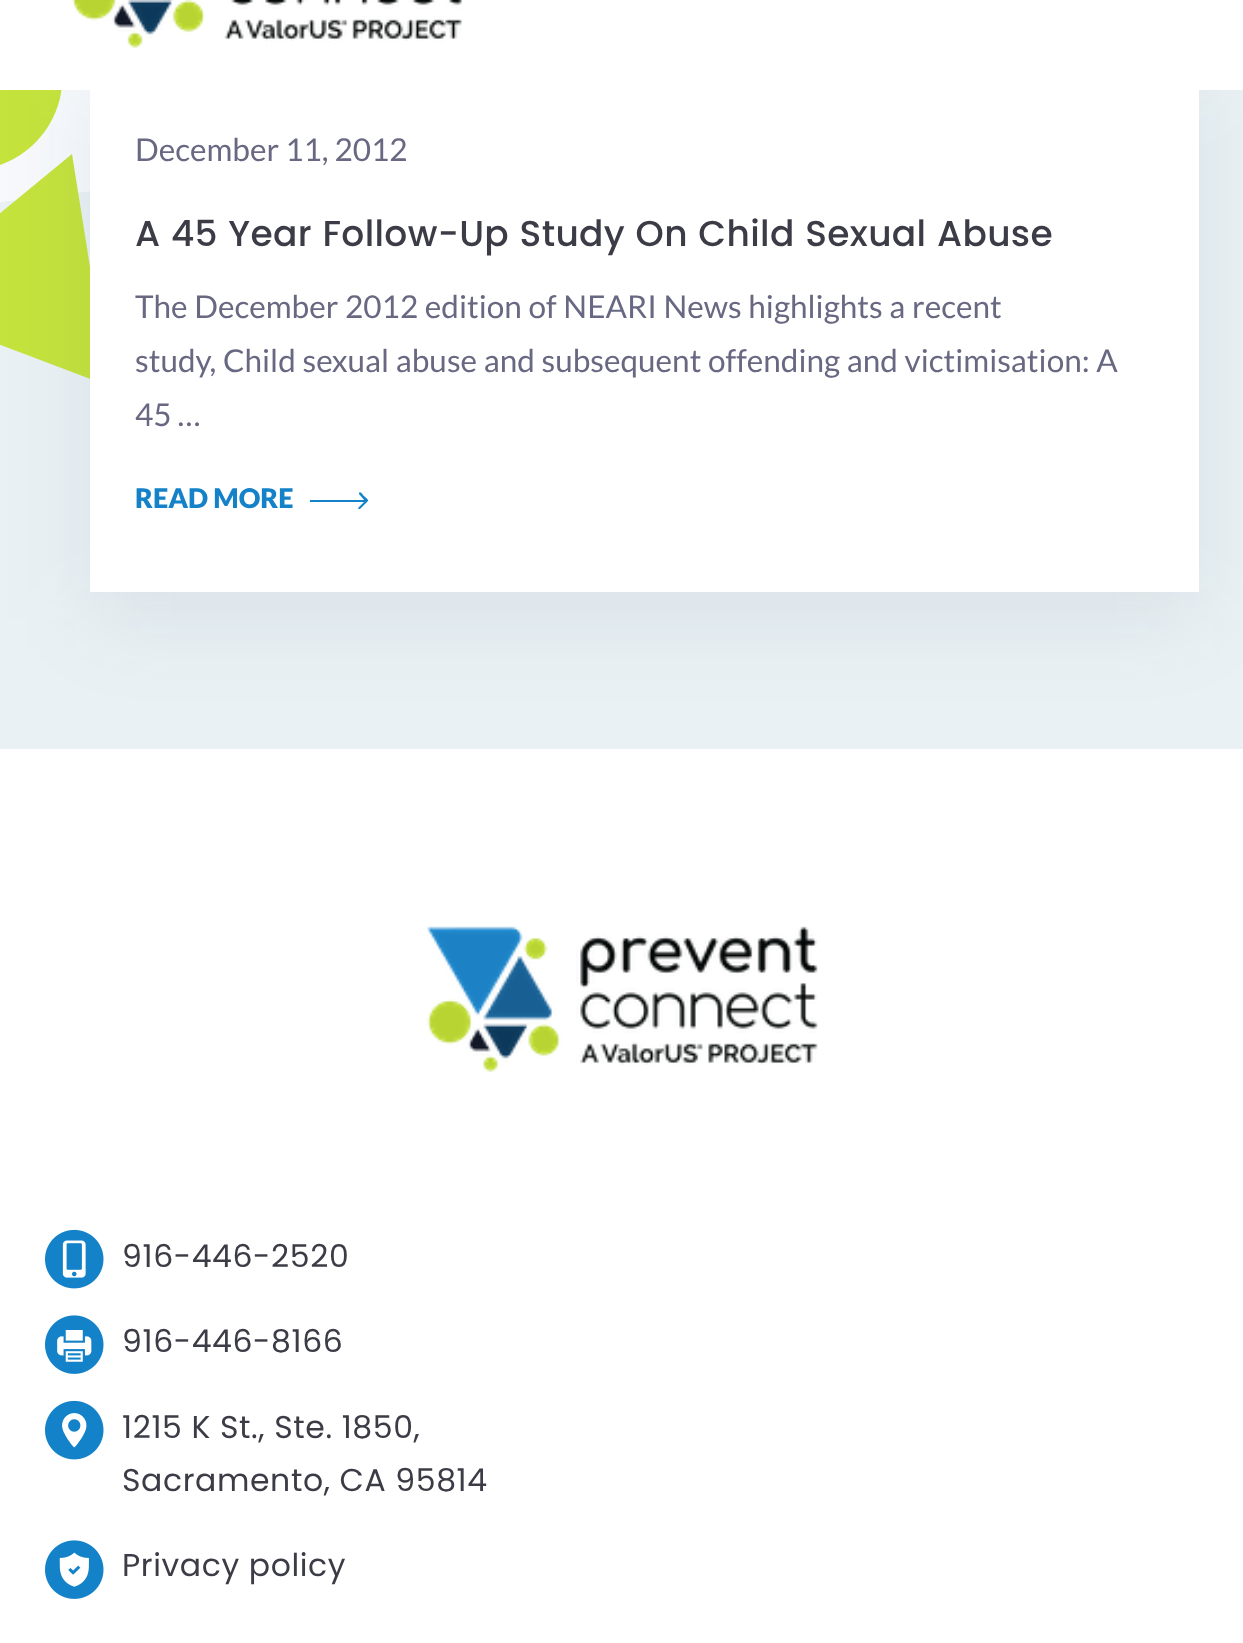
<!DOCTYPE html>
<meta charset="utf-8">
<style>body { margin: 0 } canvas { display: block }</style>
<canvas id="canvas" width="1243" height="1643"></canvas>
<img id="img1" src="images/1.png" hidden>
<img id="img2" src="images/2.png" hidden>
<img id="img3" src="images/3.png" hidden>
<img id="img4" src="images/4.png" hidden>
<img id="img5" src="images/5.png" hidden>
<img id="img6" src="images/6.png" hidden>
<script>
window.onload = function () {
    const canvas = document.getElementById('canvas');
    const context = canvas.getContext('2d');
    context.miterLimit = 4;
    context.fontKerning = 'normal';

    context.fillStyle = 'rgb(247, 249, 252)';
    context.fillRect(0, 0, 1243, 1643);
    context.fillStyle = 'rgb(234, 241, 244)';
    context.beginPath();
    context.moveTo(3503, -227);
    context.lineTo(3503, 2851);
    context.lineTo(-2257, 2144);
    context.lineTo(-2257, 479);
    context.closePath();
    context.fill();
    context.fillStyle = 'rgb(197, 227, 61)';
    context.beginPath();
    context.moveTo(-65, 165);
    context.bezierCurveTo(-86, 157, -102, 142, -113, 122);
    context.bezierCurveTo(-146, 63, -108, -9, -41, -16);
    context.bezierCurveTo(-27, -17, -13, -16, 0, -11);
    context.bezierCurveTo(22, -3, 39, 12, 51, 32);
    context.bezierCurveTo(83, 91, 45, 163, -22, 170);
    context.bezierCurveTo(-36, 172, -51, 170, -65, 165);
    context.closePath();
    context.fill();
    context.beginPath();
    context.moveTo(-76, 316);
    context.bezierCurveTo(-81, 314, -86, 310, -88, 304);
    context.bezierCurveTo(-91, 295, -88, 286, -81, 280);
    context.lineTo(72, 154);
    context.lineTo(109, 386);
    context.closePath();
    context.fill();
    context.fillStyle = 'rgba(17, 57, 91, 0.08)';
    context.filter = 'blur(45px)';
    context.beginPath();
    context.rect(90, 74, 1109, 545);
    context.fill();
    context.filter = 'none';
    context.fillStyle = 'rgb(255, 255, 255)';
    context.fillRect(0, 0, 1243, 90);
    context.drawImage(document.getElementById('img1'), 71, 0, 391, 48);
    context.fillRect(90, 90, 1109, 502);
    context.fillStyle = 'rgb(20, 130, 200)';
    context.beginPath();
    context.moveTo(368, 501);
    context.bezierCurveTo(369, 500, 365, 497, 364, 496);
    context.bezierCurveTo(364, 496, 360, 490, 359, 493);
    context.lineTo(359, 494);
    context.lineTo(365, 501);
    context.lineTo(358, 508);
    context.bezierCurveTo(358, 509, 360, 509, 360, 509);
    context.closePath();
    context.moveTo(310, 502);
    context.lineTo(367, 502);
    context.lineTo(367, 500);
    context.lineTo(310, 500);
    context.closePath();
    context.fill();
    context.fillStyle = 'rgb(255, 255, 255)';
    context.fillRect(0, 749, 1243, 894);
    context.drawImage(document.getElementById('img2'), 427, 926, 391, 146);
    context.drawImage(document.getElementById('img3'), 45, 1229, 59, 60);
    context.drawImage(document.getElementById('img4'), 45, 1315, 59, 59);
    context.drawImage(document.getElementById('img5'), 45, 1400, 59, 60);
    context.drawImage(document.getElementById('img6'), 45, 1540, 59, 59);
    context.font = '31.5px Lato';
    context.fillStyle = 'rgb(104, 104, 130)';
    context.fillText('December 11, 2012', 135, 161);
    context.letterSpacing = '0.35px';
    context.wordSpacing = '0.75px';
    context.font = '500 36px Poppins';
    context.fillStyle = 'rgb(60, 60, 71)';
    context.fillText('A 45 Year Follow-Up Study On Child Sexual Abuse', 135, 246);
    context.letterSpacing = '0px';
    context.wordSpacing = '0.6px';
    context.font = '31.5px Lato';
    context.fillStyle = 'rgb(104, 104, 130)';
    context.fillText('The December 2012 edition of NEARI News highlights a recent', 135, 318);
    context.fillText('study, Child sexual abuse and subsequent offending and victimisation: A', 135, 372);
    context.wordSpacing = '0px';
    context.fillText('45 …', 135, 426);
    context.font = '900 27px Lato';
    context.fillStyle = 'rgb(20, 130, 200)';
    context.fillText('READ MORE', 135, 508);
    context.letterSpacing = '0.6px';
    context.font = '31.5px Poppins';
    context.fillStyle = 'rgb(60, 60, 71)';
    context.fillText('916-446-2520', 122, 1267);
    context.fillText('916-446-8166', 122, 1352);
    context.fillText('1215 K St., Ste. 1850,', 122, 1438);
    context.fillText('Sacramento, CA 95814', 122, 1491);
    context.fillText('Privacy policy', 122, 1576);
};
</script>
